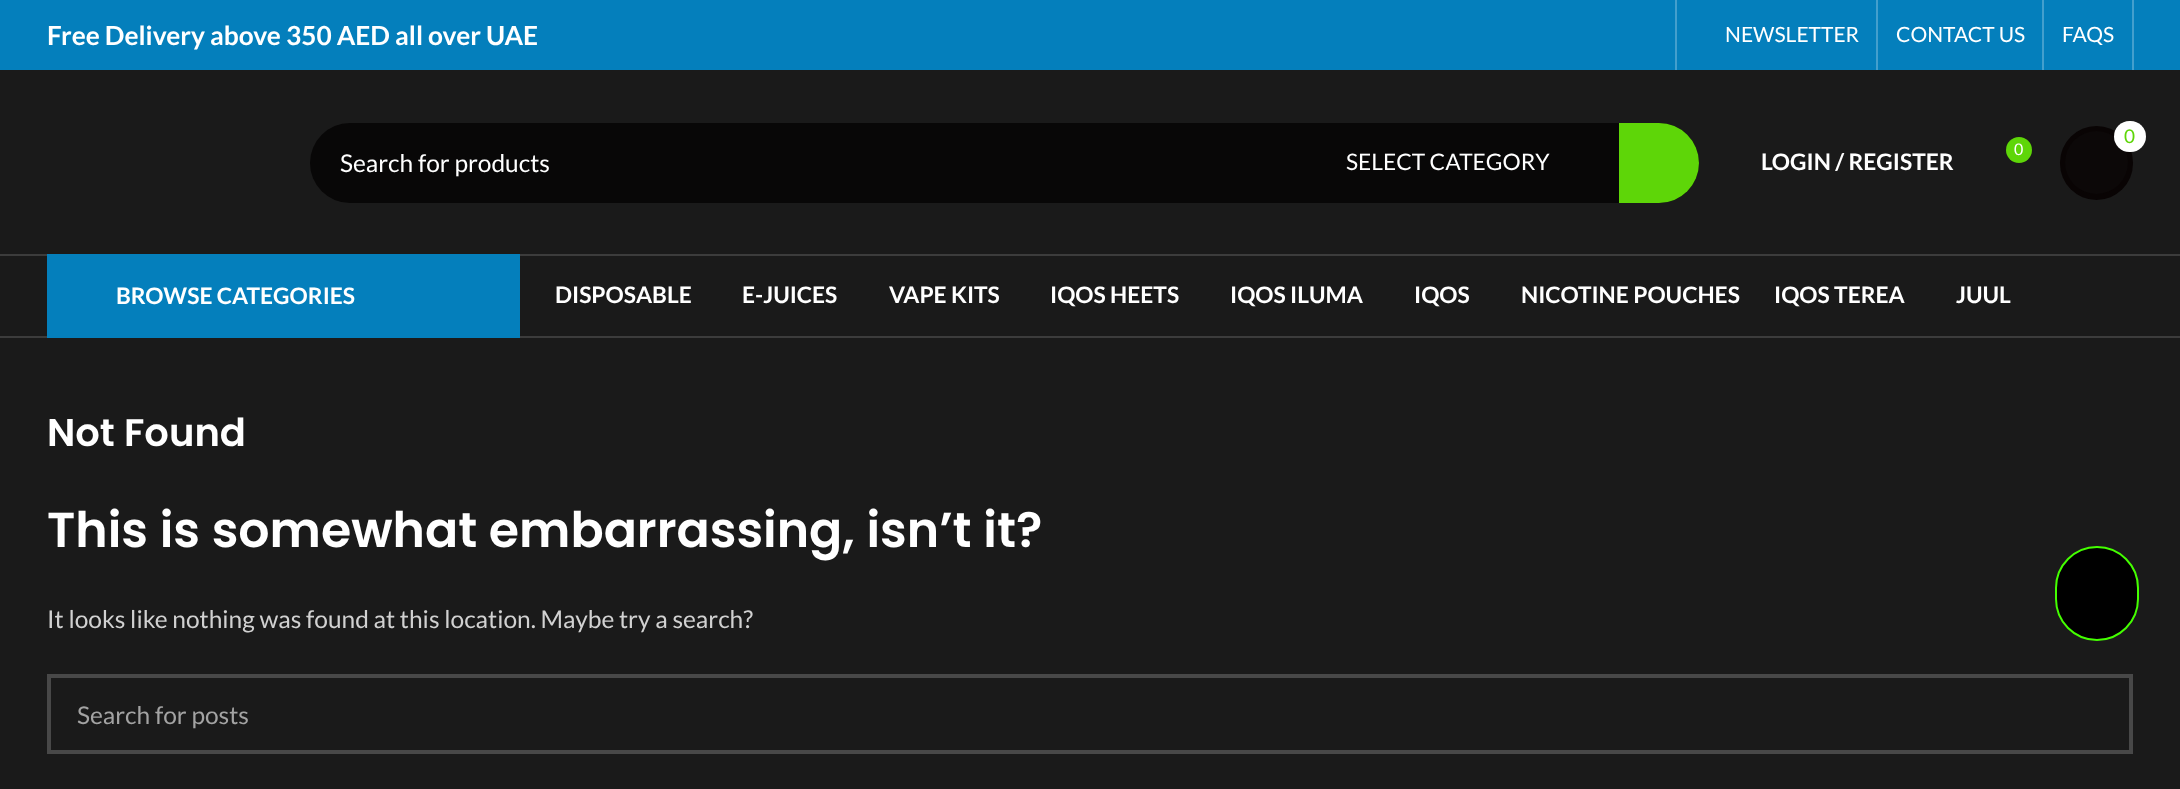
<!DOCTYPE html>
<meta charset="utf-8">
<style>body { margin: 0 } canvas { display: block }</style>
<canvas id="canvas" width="2180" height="789"></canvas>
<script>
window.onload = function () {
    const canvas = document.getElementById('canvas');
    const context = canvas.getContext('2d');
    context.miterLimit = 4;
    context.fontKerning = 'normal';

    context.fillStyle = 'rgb(26, 26, 26)';
    context.fillRect(0, 0, 2180, 789);
    context.fillStyle = 'rgb(4, 127, 188)';
    context.fillRect(0, 0, 2180, 70);
    context.fillStyle = 'rgb(67, 159, 205)';
    context.fillRect(1675, 0, 2, 70);
    context.fillRect(1876, 0, 2, 70);
    context.fillRect(2042, 0, 2, 70);
    context.fillRect(2132, 0, 2, 70);
    context.fillStyle = 'rgb(60, 60, 60)';
    context.fillRect(0, 254, 2180, 2);
    context.fillStyle = 'rgb(8, 7, 7)';
    context.beginPath();
    context.roundRect(310, 123, 1389, 80, 40);
    context.fill();
    context.fillStyle = 'rgb(94, 214, 8)';
    context.beginPath();
    context.roundRect(1619, 123, 80, 80, [0, 40, 40, 0]);
    context.fill();
    context.fillStyle = 'rgb(9, 4, 4)';
    context.beginPath();
    context.roundRect(2060, 126, 73, 74, 36.5);
    context.fill();
    context.fillStyle = 'rgb(12, 8, 8)';
    context.beginPath();
    context.arc(2096.5, 162.5, 31.5, 0, 2 * Math.PI);
    context.fill();
    context.fillStyle = 'rgb(255, 255, 255)';
    context.beginPath();
    context.roundRect(2114, 121, 32, 31, 15.5);
    context.fill();
    context.fillStyle = 'rgb(94, 214, 8)';
    context.beginPath();
    context.arc(2019, 150, 13, 0, 2 * Math.PI);
    context.fill();
    context.fillStyle = 'rgb(60, 60, 60)';
    context.fillRect(0, 336, 2180, 2);
    context.fillStyle = 'rgb(4, 127, 188)';
    context.fillRect(47, 254, 473, 84);
    context.strokeStyle = 'rgb(72, 72, 72)';
    context.lineWidth = 4;
    context.strokeRect(49, 676, 2082, 76);
    context.fillStyle = 'rgb(0, 0, 0)';
    context.beginPath();
    context.roundRect(2056, 547, 82, 93, 41);
    context.fill();
    context.strokeStyle = 'rgb(68, 255, 0)';
    context.lineWidth = 2;
    context.stroke();
    context.font = 'bold 26.25px Lato';
    context.fillStyle = 'rgb(255, 255, 255)';
    context.fillText('Free Delivery above 350 AED all over UAE', 47, 45);
    context.font = '21px Lato';
    context.fillText('NEWSLETTER', 1725, 42);
    context.fillText('CONTACT US', 1896, 42);
    context.fillText('FAQS', 2062, 42);
    context.font = '24.5px Lato';
    context.fillText('Search for products', 340, 172);
    context.font = '22.75px Lato';
    context.fillText('SELECT CATEGORY', 1346, 170);
    context.font = '19px Lato';
    context.fillStyle = 'rgb(94, 214, 8)';
    context.fillText('0', 2124, 143);
    context.font = '16px Lato';
    context.fillStyle = 'rgb(255, 255, 255)';
    context.fillText('0', 2014, 155);
    context.font = 'bold 22.75px Lato';
    context.fillText('LOGIN / REGISTER', 1761, 170);
    context.fillText('BROWSE CATEGORIES', 116, 304);
    context.fillText('DISPOSABLE', 555, 303);
    context.fillText('E-JUICES', 742, 303);
    context.fillText('VAPE KITS', 889, 303);
    context.fillText('IQOS HEETS', 1050, 303);
    context.fillText('IQOS ILUMA', 1230, 303);
    context.fillText('IQOS', 1414, 303);
    context.fillText('NICOTINE POUCHES', 1521, 303);
    context.fillText('IQOS TEREA', 1774, 303);
    context.fillText('JUUL', 1956, 303);
    context.font = '600 38.5px Poppins';
    context.fillText('Not Found', 47, 446);
    context.font = '600 49px Poppins';
    context.fillText('This is somewhat embarrassing, isn’t it?', 47, 547);
    context.font = '24.5px Lato';
    context.fillStyle = 'rgb(209, 209, 209)';
    context.fillText('It looks like nothing was found at this location. Maybe try a search?', 47, 628);
    context.fillStyle = 'rgb(163, 163, 163)';
    context.fillText('Search for posts', 77, 724);
};
</script>
